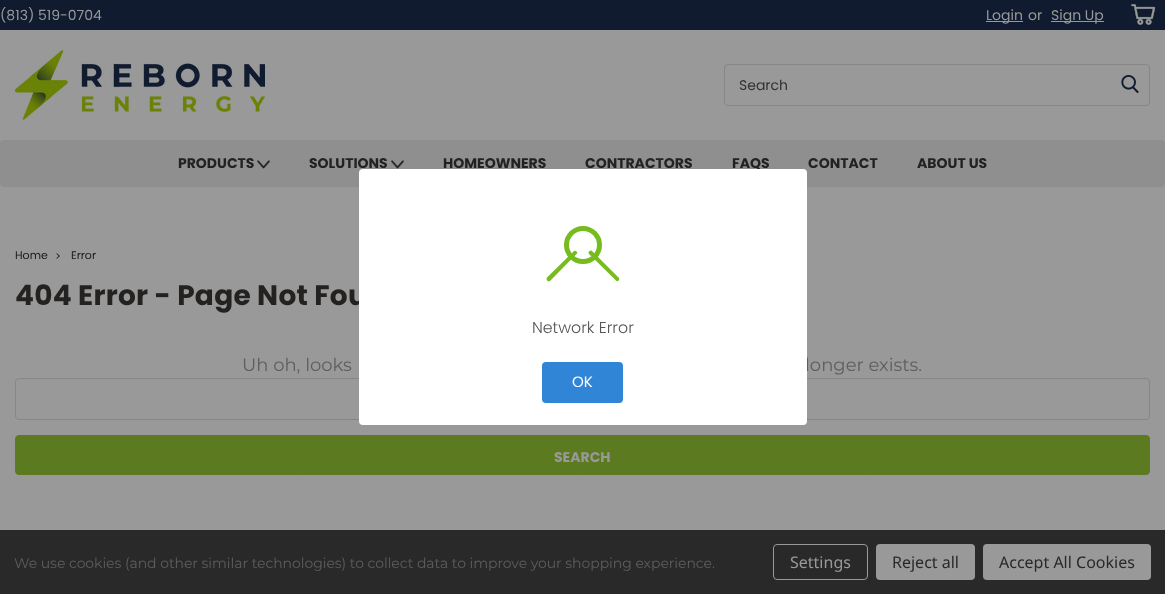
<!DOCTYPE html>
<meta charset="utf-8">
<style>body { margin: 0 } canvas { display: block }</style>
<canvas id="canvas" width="1165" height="594"></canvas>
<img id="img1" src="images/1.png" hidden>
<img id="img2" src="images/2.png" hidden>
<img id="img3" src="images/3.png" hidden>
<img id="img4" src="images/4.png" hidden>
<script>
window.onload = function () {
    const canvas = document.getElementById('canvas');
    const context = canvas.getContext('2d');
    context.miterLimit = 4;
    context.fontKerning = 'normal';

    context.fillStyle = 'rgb(153, 153, 153)';
    context.fillRect(0, 0, 1165, 594);
    context.fillStyle = 'rgb(16, 27, 47)';
    context.fillRect(0, 0, 1165, 30);
    context.fillStyle = 'rgb(153, 153, 153)';
    context.fillRect(986, 21, 37, 1);
    context.fillRect(1051, 21, 53, 1);
    context.drawImage(document.getElementById('img1'), 1131, 4, 25, 21);
    context.drawImage(document.getElementById('img2'), 15, 50, 250, 70);
    context.beginPath();
    context.roundRect(724.5, 64.5, 425, 41, 3.5);
    context.strokeStyle = 'rgb(135, 134, 133)';
    context.stroke();
    context.drawImage(document.getElementById('img3'), 1121, 75, 18, 18);
    context.fillStyle = 'rgb(143, 143, 143)';
    context.beginPath();
    context.roundRect(0, 140, 1165, 47, 4);
    context.fill();
    context.drawImage(document.getElementById('img4'), 257, 160, 13, 9);
    context.drawImage(document.getElementById('img4'), 391, 160, 13, 9);
    context.beginPath();
    context.roundRect(15.5, 378.5, 1134, 41, 3.5);
    context.stroke();
    context.fillStyle = 'rgb(92, 122, 31)';
    context.beginPath();
    context.roundRect(15.5, 435.5, 1134, 39, 3.5);
    context.fill();
    context.strokeStyle = 'rgb(92, 122, 31)';
    context.stroke();
    context.fillStyle = 'rgb(41, 41, 41)';
    context.fillRect(0, 530, 1165, 64);
    context.beginPath();
    context.roundRect(773.5, 544.5, 94, 35, 3.5);
    context.strokeStyle = 'rgb(153, 153, 153)';
    context.stroke();
    context.fillStyle = 'rgb(153, 153, 153)';
    context.beginPath();
    context.roundRect(876, 544, 99, 36, 4);
    context.fill();
    context.beginPath();
    context.roundRect(983, 544, 168, 36, 4);
    context.fill();
    context.font = '14px Poppins';
    context.fillText('(813) 519-0704', 0, 20);
    context.fillText('Login', 986, 20);
    context.fillText('or', 1028, 20);
    context.fillText('Sign Up', 1051, 20);
    context.fillStyle = 'rgb(50, 50, 50)';
    context.fillText('Search', 739, 90);
    context.font = 'bold 14px Poppins';
    context.fillStyle = 'rgb(36, 34, 32)';
    context.fillText('PRODUCTS', 178, 168);
    context.fillText('SOLUTIONS', 309, 168);
    context.fillText('HOMEOWNERS', 443, 168);
    context.fillText('CONTRACTORS', 585, 168);
    context.fillText('FAQS', 732, 168);
    context.fillText('CONTACT', 808, 168);
    context.fillText('ABOUT US', 917, 168);
    context.font = '11px Poppins';
    context.fillStyle = 'rgb(26, 25, 32)';
    context.fillText('Home', 15, 259);
    context.fillText('>', 55, 260);
    context.fillText('Error', 71, 259);
    context.letterSpacing = '0.25px';
    context.font = 'bold 28px Poppins';
    context.fillStyle = 'rgb(36, 34, 32)';
    context.fillText('404 Error - Page Not Fou', 15, 305);
    context.letterSpacing = '0px';
    context.font = '18px Montserrat';
    context.fillStyle = 'rgb(94, 94, 94)';
    context.fillText('Uh oh, looks', 242, 371);
    context.fillText('longer exists.', 805, 371);
    context.font = 'bold 14px Poppins';
    context.fillStyle = 'rgb(153, 153, 153)';
    context.fillText('SEARCH', 554, 462);
    context.fillStyle = 'rgb(255, 255, 255)';
    context.beginPath();
    context.roundRect(359, 169, 448, 256, 4);
    context.fill();
    context.beginPath();
    context.arc(583, 245, 16.5, 0, 2 * Math.PI);
    context.strokeStyle = 'rgb(119, 188, 31)';
    context.lineWidth = 5;
    context.stroke();
    context.fillStyle = 'rgb(119, 188, 31)';
    context.beginPath();
    context.moveTo(547, 277.5);
    context.lineTo(574, 251);
    context.bezierCurveTo(575.5, 250, 578, 252, 577, 253.5);
    context.lineTo(550, 281);
    context.lineTo(548.5, 281.5);
    context.bezierCurveTo(547, 281, 546, 279, 547, 277.5);
    context.closePath();
    context.fill();
    context.beginPath();
    context.moveTo(592, 251);
    context.lineTo(619, 278);
    context.bezierCurveTo(620, 279.5, 618, 282, 616.5, 281);
    context.lineTo(589, 254);
    context.lineTo(588.5, 252.5);
    context.bezierCurveTo(589, 251, 591, 250, 592, 251);
    context.closePath();
    context.fill();
    context.font = '300 15.75px Poppins';
    context.fillStyle = 'rgb(84, 84, 84)';
    context.fillText('Network Error', 532, 333);
    context.fillStyle = 'rgb(48, 133, 214)';
    context.beginPath();
    context.roundRect(542, 362, 81, 41, 4);
    context.fill();
    context.font = '15px Poppins';
    context.fillStyle = 'rgb(255, 255, 255)';
    context.fillText('OK', 572, 387);
    context.letterSpacing = '-0.05px';
    context.font = '14px Montserrat';
    context.fillStyle = 'rgb(94, 94, 94)';
    context.fillText('We use cookies (and other similar technologies) to collect data to improve your shopping experience.', 14, 568);
    context.letterSpacing = '0px';
    context.font = '16px Noto Sans';
    context.fillStyle = 'rgb(153, 153, 153)';
    context.fillText('Settings', 790, 568);
    context.fillStyle = 'rgb(41, 41, 41)';
    context.fillText('Reject all', 892, 568);
    context.fillText('Accept All Cookies', 999, 568);
};
</script>
